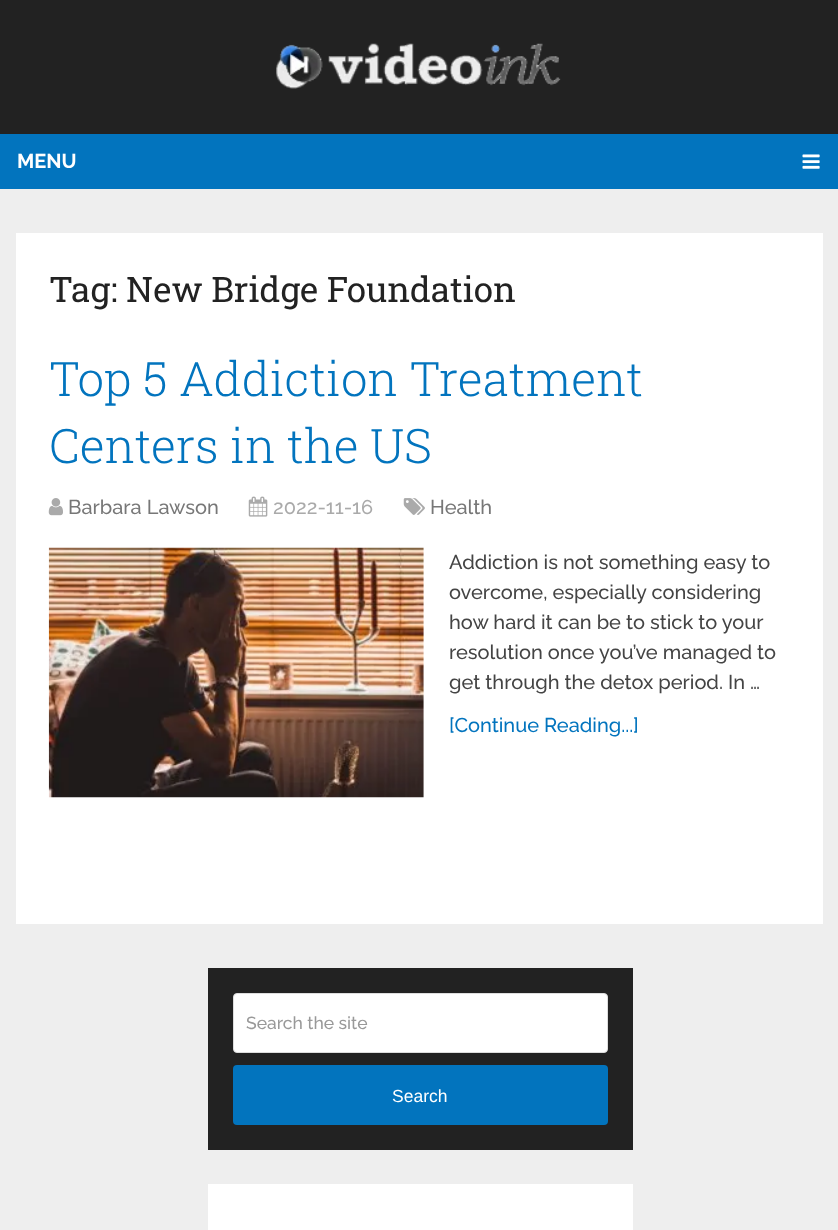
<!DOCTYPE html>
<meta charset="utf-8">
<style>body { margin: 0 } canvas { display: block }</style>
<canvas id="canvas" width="838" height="1230"></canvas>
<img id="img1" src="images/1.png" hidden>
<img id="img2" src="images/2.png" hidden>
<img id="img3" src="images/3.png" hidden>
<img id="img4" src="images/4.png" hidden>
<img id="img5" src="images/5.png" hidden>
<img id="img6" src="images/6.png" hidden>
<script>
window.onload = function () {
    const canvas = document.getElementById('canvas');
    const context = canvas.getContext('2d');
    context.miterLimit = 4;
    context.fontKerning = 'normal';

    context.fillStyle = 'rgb(238, 238, 238)';
    context.fillRect(0, 0, 838, 1230);
    context.fillStyle = 'rgb(34, 34, 34)';
    context.fillRect(0, 0, 838, 134);
    context.drawImage(document.getElementById('img1'), 276, 43, 285, 46);
    context.fillStyle = 'rgb(2, 116, 190)';
    context.fillRect(0, 134, 838, 55);
    context.drawImage(document.getElementById('img2'), 802, 154, 18, 15);
    context.fillStyle = 'rgb(255, 255, 255)';
    context.fillRect(16, 233, 807, 691);
    context.drawImage(document.getElementById('img3'), 48, 498, 15, 18);
    context.drawImage(document.getElementById('img4'), 248, 496, 20, 21);
    context.drawImage(document.getElementById('img5'), 403, 498, 22, 17);
    context.drawImage(document.getElementById('img6'), 48, 547, 376, 251);
    context.fillStyle = 'rgb(34, 34, 34)';
    context.fillRect(208, 968, 425, 182);
    context.fillStyle = 'rgb(255, 255, 255)';
    context.beginPath();
    context.roundRect(233.5, 993.5, 374, 59, 3.5);
    context.fill();
    context.strokeStyle = 'rgb(221, 221, 221)';
    context.stroke();
    context.fillStyle = 'rgb(2, 116, 190)';
    context.beginPath();
    context.roundRect(233, 1065, 375, 60, 4);
    context.fill();
    context.fillStyle = 'rgb(255, 255, 255)';
    context.fillRect(208, 1184, 425, 46);
    context.font = 'bold 20px Raleway';
    context.fillText('MENU', 17, 168);
    context.font = '35px Roboto Slab';
    context.fillStyle = 'rgb(34, 34, 34)';
    context.fillText('Tag: New Bridge Foundation', 49, 302);
    context.font = '300 47.5px Roboto Slab';
    context.fillStyle = 'rgb(2, 116, 190)';
    context.fillText('Top 5 Addiction Treatment', 49, 396);
    context.fillText('Centers in the US', 49, 463);
    context.font = '500 20px Raleway';
    context.fillStyle = 'rgb(119, 119, 119)';
    context.fillText('Barbara Lawson', 68, 514);
    context.fillStyle = 'rgb(170, 170, 170)';
    context.fillText('2022-11-16', 273, 514);
    context.fillStyle = 'rgb(119, 119, 119)';
    context.fillText('Health', 430, 514);
    context.fillStyle = 'rgb(68, 68, 68)';
    context.fillText('Addiction is not something easy to', 449, 569);
    context.fillText('overcome, especially considering', 449, 599);
    context.fillText('how hard it can be to stick to your', 449, 629);
    context.fillText('resolution once you’ve managed to', 449, 659);
    context.fillText('get through the detox period. In …', 449, 689);
    context.fillStyle = 'rgb(2, 116, 190)';
    context.fillText('[Continue Reading...]', 449, 732);
    context.font = '500 17.5px Raleway';
    context.fillStyle = 'rgb(153, 153, 153)';
    context.fillText('Search the site', 246, 1029);
    context.font = '17.5px Liberation Sans';
    context.fillStyle = 'rgb(255, 255, 255)';
    context.fillText('Search', 392, 1102);
};
</script>
